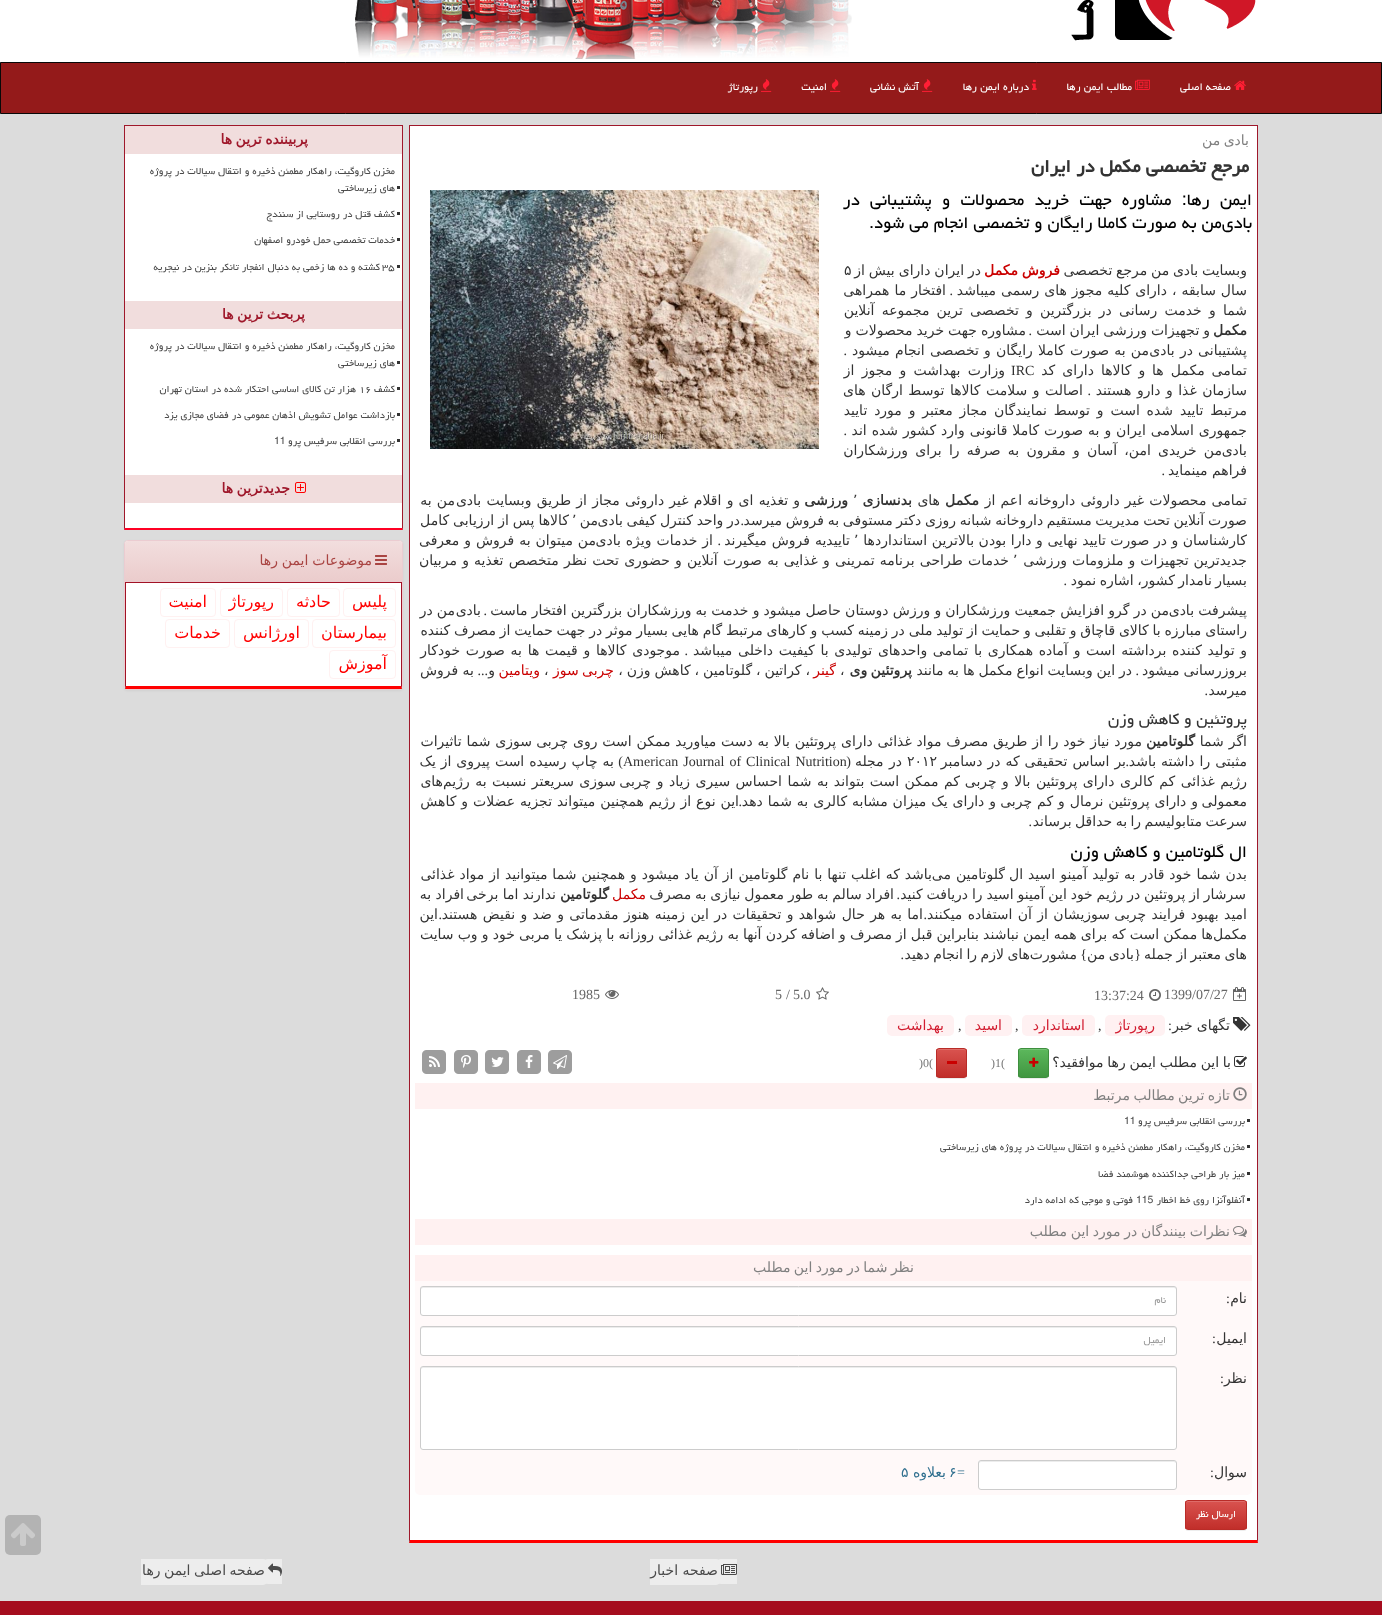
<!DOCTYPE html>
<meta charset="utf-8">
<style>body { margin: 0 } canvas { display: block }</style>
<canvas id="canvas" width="1382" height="1615"></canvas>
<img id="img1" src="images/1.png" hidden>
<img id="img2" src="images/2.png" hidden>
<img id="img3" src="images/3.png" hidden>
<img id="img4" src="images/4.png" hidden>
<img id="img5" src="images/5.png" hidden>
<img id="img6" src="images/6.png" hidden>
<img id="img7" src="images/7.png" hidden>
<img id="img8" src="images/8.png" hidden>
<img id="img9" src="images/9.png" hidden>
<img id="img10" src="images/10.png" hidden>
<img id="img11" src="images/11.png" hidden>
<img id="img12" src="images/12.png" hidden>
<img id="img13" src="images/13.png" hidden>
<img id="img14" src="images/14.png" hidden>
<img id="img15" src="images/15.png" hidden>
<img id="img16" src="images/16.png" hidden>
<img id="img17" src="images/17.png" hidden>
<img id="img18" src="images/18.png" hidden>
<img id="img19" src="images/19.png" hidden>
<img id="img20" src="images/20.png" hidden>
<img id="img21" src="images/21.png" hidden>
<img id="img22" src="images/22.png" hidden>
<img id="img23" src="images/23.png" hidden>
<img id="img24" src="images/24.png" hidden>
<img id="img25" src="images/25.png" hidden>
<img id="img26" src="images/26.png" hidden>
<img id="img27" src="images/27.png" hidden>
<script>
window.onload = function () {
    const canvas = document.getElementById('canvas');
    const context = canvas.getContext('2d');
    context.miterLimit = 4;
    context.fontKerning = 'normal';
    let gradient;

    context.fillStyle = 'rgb(220, 220, 220)';
    context.fillRect(0, 0, 1382, 1615);
    context.fillStyle = 'rgb(255, 255, 255)';
    context.fillRect(0, 0, 1382, 62);
    context.drawImage(document.getElementById('img1'), 355, 0, 497, 59);
    context.drawImage(document.getElementById('img2'), 1071, 0, 185, 41);
    context.fillStyle = 'rgb(148, 26, 26)';
    context.beginPath();
    context.rect(0.5, 62.5, 1381, 51);
    context.fill();
    context.strokeStyle = 'rgb(8, 8, 8)';
    context.stroke();
    context.drawImage(document.getElementById('img3'), 1234, 80, 12, 10);
    context.drawImage(document.getElementById('img4'), 1135, 79, 15, 11);
    context.drawImage(document.getElementById('img5'), 1032, 79, 5, 11);
    context.drawImage(document.getElementById('img6'), 922, 79, 11, 13);
    context.drawImage(document.getElementById('img6'), 830, 79, 11, 13);
    context.drawImage(document.getElementById('img6'), 761, 79, 11, 13);
    context.fillStyle = 'rgb(255, 255, 255)';
    context.fillRect(410, 126, 847, 1414);
    context.fillStyle = 'rgb(159, 24, 43)';
    context.fillRect(409, 125, 849, 1);
    context.beginPath();
    context.moveTo(1258, 125);
    context.lineTo(1258, 1543);
    context.lineTo(1257, 1540);
    context.lineTo(1257, 126);
    context.closePath();
    context.fill();
    context.fillStyle = 'rgb(255, 0, 0)';
    context.beginPath();
    context.moveTo(1258, 1543);
    context.lineTo(409, 1543);
    context.lineTo(410, 1540);
    context.lineTo(1257, 1540);
    context.closePath();
    context.fill();
    context.fillStyle = 'rgb(159, 24, 43)';
    context.beginPath();
    context.moveTo(409, 1543);
    context.lineTo(409, 125);
    context.lineTo(410, 126);
    context.lineTo(410, 1540);
    context.closePath();
    context.fill();
    context.drawImage(document.getElementById('img7'), 430, 190, 389, 259);
    context.drawImage(document.getElementById('img8'), 1233, 987, 13, 14);
    context.drawImage(document.getElementById('img9'), 1149, 989, 12, 12);
    context.drawImage(document.getElementById('img10'), 816, 987, 13, 13);
    context.drawImage(document.getElementById('img11'), 605, 990, 14, 9);
    context.drawImage(document.getElementById('img12'), 1233, 1017, 18, 14);
    context.fillStyle = 'rgb(255, 241, 242)';
    context.beginPath();
    context.roundRect(1105, 1015, 60, 21, 5);
    context.fill();
    context.beginPath();
    context.roundRect(1022, 1015, 73, 21, 5);
    context.fill();
    context.beginPath();
    context.roundRect(965, 1015, 47, 21, 5);
    context.fill();
    context.beginPath();
    context.roundRect(887, 1015, 67, 21, 5);
    context.fill();
    context.drawImage(document.getElementById('img13'), 1234, 1056, 13, 11);
    context.fillStyle = 'rgba(0, 0, 0, 0.07)';
    context.filter = 'blur(0.5px)';
    context.beginPath();
    context.roundRect(1018, 1049, 31, 30, 3);
    context.fill();
    context.filter = 'none';
    context.save();
    context.beginPath();
    context.roundRect(1018, 1048, 31, 30, 3);
    context.clip();
    gradient = context.createLinearGradient(1034, 1049, 1034, 1077);
    gradient.addColorStop(0, 'rgb(92, 184, 92)');
    gradient.addColorStop(1, 'rgb(65, 150, 65)');
    context.fillStyle = gradient;
    context.fillRect(1018, 1049, 31, 28);
    context.restore();
    context.fillStyle = 'rgb(116, 194, 116)';
    context.beginPath();
    context.moveTo(1021, 1050);
    context.lineTo(1046, 1050);
    context.bezierCurveTo(1047, 1050, 1048, 1051, 1048, 1052);
    context.bezierCurveTo(1048, 1048, 1045.5, 1049, 1042, 1049);
    context.lineTo(1025, 1049);
    context.bezierCurveTo(1021.5, 1049, 1019, 1048, 1019, 1052);
    context.bezierCurveTo(1019, 1051, 1020, 1050, 1021, 1050);
    context.closePath();
    context.fill();
    context.beginPath();
    context.roundRect(1018.5, 1048.5, 30, 29, 2.5);
    context.strokeStyle = 'rgb(62, 143, 62)';
    context.stroke();
    context.drawImage(document.getElementById('img14'), 1029, 1057, 10, 10);
    context.fillStyle = 'rgba(0, 0, 0, 0.07)';
    context.filter = 'blur(0.5px)';
    context.beginPath();
    context.roundRect(936, 1049, 31, 30, 3);
    context.fill();
    context.filter = 'none';
    context.save();
    context.beginPath();
    context.roundRect(936, 1048, 31, 30, 3);
    context.clip();
    gradient = context.createLinearGradient(952, 1049, 952, 1077);
    gradient.addColorStop(0, 'rgb(217, 83, 79)');
    gradient.addColorStop(1, 'rgb(193, 46, 42)');
    context.fillStyle = gradient;
    context.fillRect(936, 1049, 31, 28);
    context.restore();
    context.fillStyle = 'rgb(223, 108, 104)';
    context.beginPath();
    context.moveTo(939, 1050);
    context.lineTo(964, 1050);
    context.bezierCurveTo(965, 1050, 966, 1051, 966, 1052);
    context.bezierCurveTo(966, 1048, 963.5, 1049, 960, 1049);
    context.lineTo(943, 1049);
    context.bezierCurveTo(939.5, 1049, 937, 1048, 937, 1052);
    context.bezierCurveTo(937, 1051, 938, 1050, 939, 1050);
    context.closePath();
    context.fill();
    context.beginPath();
    context.roundRect(936.5, 1048.5, 30, 29, 2.5);
    context.strokeStyle = 'rgb(185, 44, 40)';
    context.stroke();
    context.fillStyle = 'rgb(202, 0, 0)';
    context.fillRect(947, 1061, 10, 3);
    context.drawImage(document.getElementById('img15'), 548, 1050, 24, 24);
    context.drawImage(document.getElementById('img16'), 553, 1055, 14, 14);
    context.drawImage(document.getElementById('img15'), 517, 1050, 24, 24);
    context.drawImage(document.getElementById('img17'), 525, 1055, 8, 13);
    context.drawImage(document.getElementById('img15'), 485, 1050, 24, 24);
    context.drawImage(document.getElementById('img18'), 491, 1057, 13, 10);
    context.drawImage(document.getElementById('img15'), 454, 1050, 24, 24);
    context.drawImage(document.getElementById('img19'), 461, 1055, 10, 13);
    context.drawImage(document.getElementById('img15'), 422, 1050, 24, 24);
    context.drawImage(document.getElementById('img20'), 429, 1056, 11, 11);
    context.fillStyle = 'rgb(255, 241, 241)';
    context.fillRect(415, 1083, 837, 26);
    context.drawImage(document.getElementById('img21'), 1233, 1087, 14, 14);
    context.fillStyle = 'rgb(51, 51, 51)';
    context.fillRect(1247, 1119, 3, 3);
    context.fillRect(1247, 1145, 3, 3);
    context.fillRect(1247, 1172, 3, 3);
    context.fillRect(1247, 1198, 3, 3);
    context.fillStyle = 'rgb(255, 241, 241)';
    context.fillRect(415, 1219, 837, 26);
    context.drawImage(document.getElementById('img22'), 1233, 1226, 14, 11);
    context.fillRect(415, 1255, 837, 26);
    context.fillStyle = 'rgb(255, 249, 249)';
    context.beginPath();
    context.roundRect(415, 1281, 837, 214, [0, 0, 5, 5]);
    context.fill();
    context.fillStyle = 'rgb(255, 255, 255)';
    context.beginPath();
    context.roundRect(420, 1286, 757, 30, 3);
    context.fill();
    context.fillStyle = 'rgb(236, 236, 236)';
    context.beginPath();
    context.moveTo(423, 1288);
    context.lineTo(1174, 1288);
    context.bezierCurveTo(1175, 1288, 1176, 1289, 1176, 1290);
    context.bezierCurveTo(1176, 1289, 1176, 1287, 1174, 1287);
    context.lineTo(423, 1287);
    context.bezierCurveTo(421, 1287, 421, 1289, 421, 1290);
    context.bezierCurveTo(421, 1289, 422, 1288, 423, 1288);
    context.closePath();
    context.fill();
    context.beginPath();
    context.roundRect(420.5, 1286.5, 756, 29, 2.5);
    context.strokeStyle = 'rgb(204, 204, 204)';
    context.stroke();
    context.fillStyle = 'rgb(255, 255, 255)';
    context.beginPath();
    context.roundRect(420, 1326, 757, 30, 3);
    context.fill();
    context.fillStyle = 'rgb(236, 236, 236)';
    context.beginPath();
    context.moveTo(423, 1328);
    context.lineTo(1174, 1328);
    context.bezierCurveTo(1175, 1328, 1176, 1329, 1176, 1330);
    context.bezierCurveTo(1176, 1329, 1176, 1327, 1174, 1327);
    context.lineTo(423, 1327);
    context.bezierCurveTo(421, 1327, 421, 1329, 421, 1330);
    context.bezierCurveTo(421, 1329, 422, 1328, 423, 1328);
    context.closePath();
    context.fill();
    context.beginPath();
    context.roundRect(420.5, 1326.5, 756, 29, 2.5);
    context.stroke();
    context.fillStyle = 'rgb(255, 255, 255)';
    context.beginPath();
    context.roundRect(420, 1366, 757, 84, 3);
    context.fill();
    context.fillStyle = 'rgb(236, 236, 236)';
    context.beginPath();
    context.moveTo(423, 1368);
    context.lineTo(1174, 1368);
    context.bezierCurveTo(1175, 1368, 1176, 1369, 1176, 1370);
    context.bezierCurveTo(1176, 1369, 1176, 1367, 1174, 1367);
    context.lineTo(423, 1367);
    context.bezierCurveTo(421, 1367, 421, 1369, 421, 1370);
    context.bezierCurveTo(421, 1369, 422, 1368, 423, 1368);
    context.closePath();
    context.fill();
    context.beginPath();
    context.roundRect(420.5, 1366.5, 756, 83, 2.5);
    context.stroke();
    context.fillStyle = 'rgb(255, 255, 255)';
    context.beginPath();
    context.roundRect(978, 1460, 199, 30, 3);
    context.fill();
    context.fillStyle = 'rgb(236, 236, 236)';
    context.beginPath();
    context.moveTo(981, 1462);
    context.lineTo(1174, 1462);
    context.lineTo(1176, 1463);
    context.lineTo(1176, 1464);
    context.lineTo(1176, 1463);
    context.bezierCurveTo(1176, 1462, 1175, 1461, 1174, 1461);
    context.lineTo(981, 1461);
    context.bezierCurveTo(980, 1461, 979, 1462, 979, 1463);
    context.lineTo(979, 1464);
    context.bezierCurveTo(979, 1463, 980, 1462, 981, 1462);
    context.closePath();
    context.fill();
    context.beginPath();
    context.roundRect(978.5, 1460.5, 198, 29, 2.5);
    context.stroke();
    context.fillStyle = 'rgba(0, 0, 0, 0.07)';
    context.filter = 'blur(0.5px)';
    context.beginPath();
    context.roundRect(1185, 1501, 62, 30, 3);
    context.fill();
    context.filter = 'none';
    context.save();
    context.beginPath();
    context.roundRect(1185, 1500, 62, 30, 3);
    context.clip();
    gradient = context.createLinearGradient(1216, 1501, 1216, 1529);
    gradient.addColorStop(0, 'rgb(217, 83, 79)');
    gradient.addColorStop(1, 'rgb(193, 46, 42)');
    context.fillStyle = gradient;
    context.fillRect(1185, 1501, 62, 28);
    context.restore();
    context.fillStyle = 'rgb(223, 108, 105)';
    context.beginPath();
    context.moveTo(1188, 1502);
    context.lineTo(1244, 1502);
    context.bezierCurveTo(1245, 1502, 1246, 1503, 1246, 1504);
    context.bezierCurveTo(1246, 1498, 1238, 1501, 1235, 1501);
    context.lineTo(1197, 1501);
    context.bezierCurveTo(1194, 1501, 1186, 1498, 1186, 1504);
    context.bezierCurveTo(1186, 1503, 1187, 1502, 1188, 1502);
    context.closePath();
    context.fill();
    context.beginPath();
    context.roundRect(1185.5, 1500.5, 61, 29, 2.5);
    context.strokeStyle = 'rgb(185, 44, 40)';
    context.stroke();
    context.fillStyle = 'rgb(255, 255, 255)';
    context.fillRect(125, 154, 277, 374);
    context.fillStyle = 'rgb(159, 24, 43)';
    context.fillRect(124, 125, 279, 1);
    context.beginPath();
    context.moveTo(403, 125);
    context.lineTo(403, 530);
    context.lineTo(402, 528);
    context.lineTo(402, 126);
    context.closePath();
    context.fill();
    context.fillStyle = 'rgb(255, 0, 36)';
    context.beginPath();
    context.moveTo(403, 530);
    context.lineTo(124, 530);
    context.lineTo(125, 528);
    context.lineTo(402, 528);
    context.closePath();
    context.fill();
    context.fillStyle = 'rgb(159, 24, 43)';
    context.beginPath();
    context.moveTo(124, 530);
    context.lineTo(124, 125);
    context.lineTo(125, 126);
    context.lineTo(125, 528);
    context.closePath();
    context.fill();
    context.fillStyle = 'rgb(241, 221, 221)';
    context.fillRect(125, 126, 277, 28);
    context.fillStyle = 'rgb(51, 51, 51)';
    context.fillRect(397, 186, 3, 3);
    context.fillRect(397, 212, 3, 3);
    context.fillRect(397, 238, 3, 3);
    context.fillRect(397, 265, 3, 3);
    context.fillStyle = 'rgb(241, 221, 221)';
    context.fillRect(125, 301, 277, 28);
    context.fillStyle = 'rgb(51, 51, 51)';
    context.fillRect(397, 361, 3, 3);
    context.fillRect(397, 387, 3, 3);
    context.fillRect(397, 413, 3, 3);
    context.fillRect(397, 439, 3, 3);
    context.fillStyle = 'rgb(241, 221, 221)';
    context.fillRect(125, 475, 277, 28);
    context.drawImage(document.getElementById('img23'), 295, 482, 11, 11);
    context.fillStyle = 'rgba(0, 0, 0, 0.05)';
    context.filter = 'blur(1px)';
    context.beginPath();
    context.roundRect(124, 541, 279, 150, 4);
    context.fill();
    context.filter = 'none';
    context.fillStyle = 'rgb(255, 255, 255)';
    context.beginPath();
    context.roundRect(124.5, 540.5, 278, 149, 3.5);
    context.fill();
    context.strokeStyle = 'rgb(235, 204, 209)';
    context.stroke();
    gradient = context.createLinearGradient(264, 541, 264, 581);
    gradient.addColorStop(0, 'rgb(242, 222, 222)');
    gradient.addColorStop(1, 'rgb(235, 204, 204)');
    context.fillStyle = gradient;
    context.beginPath();
    context.roundRect(125, 541, 277, 40, [3, 3, 0, 0]);
    context.fill();
    context.fillStyle = 'rgb(235, 204, 209)';
    context.fillRect(125, 581, 277, 1);
    context.drawImage(document.getElementById('img24'), 375, 555, 12, 10);
    context.fillStyle = 'rgb(162, 18, 37)';
    context.fillRect(125, 582, 277, 1);
    context.beginPath();
    context.moveTo(402, 582);
    context.lineTo(402, 689);
    context.lineTo(401, 686);
    context.lineTo(401, 583);
    context.closePath();
    context.fill();
    context.fillStyle = 'rgb(255, 0, 0)';
    context.beginPath();
    context.moveTo(402, 689);
    context.lineTo(125, 689);
    context.lineTo(126, 686);
    context.lineTo(401, 686);
    context.closePath();
    context.fill();
    context.fillStyle = 'rgb(162, 18, 37)';
    context.beginPath();
    context.moveTo(125, 689);
    context.lineTo(125, 582);
    context.lineTo(126, 583);
    context.lineTo(126, 686);
    context.closePath();
    context.fill();
    context.beginPath();
    context.roundRect(343.5, 588.5, 52, 28, 3.5);
    context.strokeStyle = 'rgb(255, 241, 241)';
    context.stroke();
    context.beginPath();
    context.roundRect(287.5, 588.5, 52, 28, 3.5);
    context.stroke();
    context.beginPath();
    context.roundRect(220.5, 588.5, 62, 28, 3.5);
    context.stroke();
    context.beginPath();
    context.roundRect(160.5, 588.5, 55, 28, 3.5);
    context.stroke();
    context.beginPath();
    context.roundRect(312.5, 619.5, 83, 28, 3.5);
    context.stroke();
    context.beginPath();
    context.roundRect(234.5, 619.5, 74, 28, 3.5);
    context.stroke();
    context.beginPath();
    context.roundRect(165.5, 619.5, 64, 28, 3.5);
    context.stroke();
    context.beginPath();
    context.roundRect(329.5, 650.5, 66, 28, 3.5);
    context.stroke();
    context.fillStyle = 'rgb(179, 179, 179)';
    context.beginPath();
    context.roundRect(5, 1515, 36, 40, 5);
    context.fill();
    context.drawImage(document.getElementById('img25'), 11, 1523, 24, 23);
    context.fillStyle = 'rgb(237, 237, 237)';
    context.beginPath();
    context.roundRect(716, 1559, 21, 25, [5, 0, 0, 5]);
    context.fill();
    context.beginPath();
    context.roundRect(650, 1559, 71, 26, [0, 5, 5, 0]);
    context.fill();
    context.drawImage(document.getElementById('img26'), 721, 1564, 16, 11);
    context.beginPath();
    context.roundRect(263, 1559, 19, 25, [5, 0, 0, 5]);
    context.fill();
    context.beginPath();
    context.roundRect(141, 1559, 127, 26, [0, 5, 5, 0]);
    context.fill();
    context.drawImage(document.getElementById('img27'), 268, 1563, 14, 13);
    context.fillStyle = 'rgb(165, 13, 30)';
    context.fillRect(0, 1601, 1382, 14);
    context.direction = 'rtl';
    context.font = '13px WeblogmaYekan';
    context.fillStyle = 'rgb(255, 255, 255)';
    context.fillText('صفحه اصلی', 1231, 90);
    context.fillText('مطالب ایمن رها', 1132, 90);
    context.fillText('درباره ایمن رها', 1029, 90);
    context.fillText('آتش نشانی', 919, 90);
    context.fillText('امنیت', 827, 90);
    context.fillText('رپورتاژ', 758, 90);
    context.wordSpacing = '-1px';
    context.font = '14px DejaVu Sans';
    context.fillStyle = 'rgb(128, 128, 128)';
    context.fillText('بادی من', 1249, 145);
    context.wordSpacing = '0px';
    context.font = 'bold 22.5px WeblogmaYekan';
    context.fillStyle = 'rgb(51, 51, 51)';
    context.fillText('مرجع تخصصی مكمل در ایران', 1249, 172);
    context.wordSpacing = '5.25px';
    context.font = '21px WeblogmaYekan';
    context.fillStyle = 'rgb(0, 0, 0)';
    context.fillText('ایمن رها: مشاوره جهت خرید محصولات و پشتیبانی در', 1252, 205);
    context.wordSpacing = '0px';
    context.fillText('بادی‌من به صورت كاملا رایگان و تخصصی انجام می شود.', 1252, 228);
    context.wordSpacing = '-0.75px';
    context.font = '14px DejaVu Sans';
    context.fillStyle = 'rgb(51, 51, 51)';
    context.fillText('وبسایت بادی من مرجع تخصصی', 1247, 275);
    context.font = 'bold 14px DejaVu Sans';
    context.fillStyle = 'rgb(202, 0, 0)';
    context.fillText('فروش مکمل', 1060, 275);
    context.wordSpacing = '-0.5px';
    context.font = '14px DejaVu Sans';
    context.fillStyle = 'rgb(51, 51, 51)';
    context.fillText('در ایران دارای بیش از', 981, 275);
    context.wordSpacing = '0px';
    context.direction = 'ltr';
    context.fillText('۵', 844, 275);
    context.wordSpacing = '0.5px';
    context.direction = 'rtl';
    context.fillText('سال سابقه ، دارای کلیه مجوز های رسمی میباشد', 1247, 295);
    context.wordSpacing = '0px';
    context.font = '14px Liberation Serif';
    context.fillText('.', 953, 295);
    context.wordSpacing = '0.5px';
    context.font = '14px DejaVu Sans';
    context.fillText('افتخار ما همراهی', 946, 295);
    context.wordSpacing = '2.75px';
    context.fillText('شما و خدمت رسانی در بزرگترین و تخصصی ترین مجموعه آنلاین', 1247, 315);
    context.wordSpacing = '0px';
    context.font = 'bold 14px DejaVu Sans';
    context.fillText('مکمل', 1247, 335);
    context.wordSpacing = '-0.5px';
    context.font = '14px DejaVu Sans';
    context.fillText('و تجهیزات ورزشی ایران است', 1210, 335);
    context.wordSpacing = '0px';
    context.font = '14px Liberation Serif';
    context.fillText('.', 1032, 335);
    context.wordSpacing = '-0.5px';
    context.font = '14px DejaVu Sans';
    context.fillText('مشاوره جهت خرید محصولات و', 1026, 335);
    context.wordSpacing = '0.75px';
    context.fillText('پشتیبانی در بادی', 1247, 355);
    context.fillText('من به صورت کاملا رایگان و تخصصی انجام میشود', 1149, 355);
    context.wordSpacing = '0px';
    context.font = '14px Liberation Serif';
    context.fillText('.', 847, 355);
    context.wordSpacing = '2.5px';
    context.font = '14px DejaVu Sans';
    context.fillText('تمامی مکمل ها و کالاها دارای کد', 1247, 375);
    context.wordSpacing = '0px';
    context.direction = 'ltr';
    context.font = '14px Liberation Serif';
    context.fillText('IRC', 1011, 375);
    context.wordSpacing = '2.75px';
    context.direction = 'rtl';
    context.font = '14px DejaVu Sans';
    context.fillText('وزارت بهداشت و مجوز از', 1005, 375);
    context.wordSpacing = '1px';
    context.fillText('سازمان غذا و دارو هستند', 1247, 395);
    context.wordSpacing = '0px';
    context.font = '14px Liberation Serif';
    context.fillText('.', 1091, 395);
    context.wordSpacing = '1px';
    context.font = '14px DejaVu Sans';
    context.fillText('اصالت و سلامت کالاها توسط ارگان های', 1083, 395);
    context.wordSpacing = '2.4px';
    context.fillText('مرتبط تایید شده است و توسط نمایندگان مجاز معتبر و مورد تایید', 1247, 415);
    context.wordSpacing = '0.5px';
    context.fillText('جمهوری اسلامی ایران و به صورت کاملا قانونی وارد کشور شده اند', 1247, 435);
    context.wordSpacing = '0px';
    context.font = '14px Liberation Serif';
    context.fillText('.', 847, 435);
    context.font = '14px DejaVu Sans';
    context.fillText('بادی', 1247, 455);
    context.wordSpacing = '2.75px';
    context.fillText('من خریدی امن، آسان و مقرون به صرفه را برای ورزشکاران', 1222, 455);
    context.wordSpacing = '0px';
    context.fillText('فراهم مینماید', 1247, 475);
    context.font = '14px Liberation Serif';
    context.fillText('.', 1165, 475);
    context.wordSpacing = '0.75px';
    context.font = '14px DejaVu Sans';
    context.fillText('تمامی محصولات غیر داروئی داروخانه اعم از', 1247, 505);
    context.wordSpacing = '0px';
    context.font = 'bold 14px DejaVu Sans';
    context.fillText('مکمل', 979, 505);
    context.font = '14px DejaVu Sans';
    context.fillText('های', 940, 505);
    context.font = 'bold 14px DejaVu Sans';
    context.fillText('بدنسازی', 912, 505);
    context.direction = 'ltr';
    context.font = '14px DejaVu Sans';
    context.fillText('٬', 853, 505);
    context.direction = 'rtl';
    context.font = 'bold 14px DejaVu Sans';
    context.fillText('ورزشی', 848, 505);
    context.wordSpacing = '0.75px';
    context.font = '14px DejaVu Sans';
    context.fillText('و تغذیه ای و اقلام غیر داروئی مجاز از طریق وبسایت بادی', 800, 505);
    context.fillText('من به', 455, 505);
    context.wordSpacing = '-0.75px';
    context.fillText('صورت آنلاین تحت مدیریت مستقیم داروخانه شبانه روزی دکتر مستوفی به فروش میرسد', 1247, 525);
    context.wordSpacing = '0px';
    context.font = '14px Liberation Serif';
    context.fillText('.', 744, 525);
    context.wordSpacing = '-0.75px';
    context.font = '14px DejaVu Sans';
    context.fillText('در واحد کنترل کیفی بادی', 740, 525);
    context.wordSpacing = '0px';
    context.fillText('من', 598, 525);
    context.direction = 'ltr';
    context.fillText('٬', 572, 525);
    context.wordSpacing = '-0.5px';
    context.direction = 'rtl';
    context.fillText('کالاها پس از ارزیابی کامل', 569, 525);
    context.wordSpacing = '0.1px';
    context.fillText('کارشناسان و در صورت تایید نهایی و دارا بودن بالاترین استانداردها', 1247, 545);
    context.wordSpacing = '0px';
    context.direction = 'ltr';
    context.fillText('٬', 854, 545);
    context.wordSpacing = '0.5px';
    context.direction = 'rtl';
    context.fillText('تاییدیه فروش میگیرند', 850, 545);
    context.wordSpacing = '0px';
    context.font = '14px Liberation Serif';
    context.fillText('.', 721, 545);
    context.wordSpacing = '0.5px';
    context.font = '14px DejaVu Sans';
    context.fillText('از خدمات ویژه بادی', 713, 545);
    context.fillText('من میتوان به فروش و معرفی', 596, 545);
    context.fillText('جدیدترین تجهیزات و ملزومات ورزشی', 1247, 565);
    context.wordSpacing = '0px';
    context.direction = 'ltr';
    context.fillText('٬', 1013, 565);
    context.wordSpacing = '0.75px';
    context.direction = 'rtl';
    context.fillText('خدمات طراحی برنامه تمرینی و غذایی به صورت آنلاین و حضوری تحت نظر متخصص تغذیه و مربیان', 1009, 565);
    context.wordSpacing = '-1px';
    context.fillText('بسیار نامدار کشور، اشاره نمود', 1247, 585);
    context.wordSpacing = '0px';
    context.font = '14px Liberation Serif';
    context.fillText('.', 1067, 585);
    context.wordSpacing = '-0.25px';
    context.font = '14px DejaVu Sans';
    context.fillText('پیشرفت بادی', 1247, 615);
    context.fillText('من در گرو افزایش جمعیت ورزشکاران و ورزش دوستان حاصل میشود و خدمت به ورزشکاران بزرگترین افتخار ماست', 1169, 615);
    context.wordSpacing = '0px';
    context.font = '14px Liberation Serif';
    context.fillText('.', 487, 615);
    context.font = '14px DejaVu Sans';
    context.fillText('بادی', 481, 615);
    context.wordSpacing = '-0.25px';
    context.fillText('من در', 455, 615);
    context.wordSpacing = '-0.65px';
    context.fillText('راستای مبارزه با کالای قاچاق و تقلبی و حمایت از تولید ملی در زمینه کسب و کارهای مرتبط گام هایی بسیار موثر در جهت حمایت از مصرف کننده', 1247, 635);
    context.wordSpacing = '1.25px';
    context.fillText('و تولید کننده برداشته است و آماده همکاری با تمامی واحدهای تولیدی با کیفیت داخلی میباشد', 1247, 655);
    context.wordSpacing = '0px';
    context.font = '14px Liberation Serif';
    context.fillText('.', 688, 655);
    context.wordSpacing = '1.25px';
    context.font = '14px DejaVu Sans';
    context.fillText('موجودی کالاها و قیمت ها به صورت خودکار', 680, 655);
    context.wordSpacing = '-0.5px';
    context.fillText('بروزرسانی میشود', 1247, 675);
    context.wordSpacing = '0px';
    context.font = '14px Liberation Serif';
    context.fillText('.', 1139, 675);
    context.wordSpacing = '-0.5px';
    context.font = '14px DejaVu Sans';
    context.fillText('در این وبسایت انواع مکمل ها به مانند', 1132, 675);
    context.wordSpacing = '-1px';
    context.font = 'bold 14px DejaVu Sans';
    context.fillText('پروتئین وی', 912, 675);
    context.wordSpacing = '0px';
    context.direction = 'ltr';
    context.font = '14px DejaVu Sans';
    context.fillText('،', 840, 675);
    context.direction = 'rtl';
    context.fillStyle = 'rgb(202, 0, 0)';
    context.fillText('گینر', 836, 675);
    context.wordSpacing = '-0.5px';
    context.fillStyle = 'rgb(51, 51, 51)';
    context.fillText('، کراتین ، گلوتامین ، کاهش وزن ،', 810, 675);
    context.wordSpacing = '-1px';
    context.fillStyle = 'rgb(202, 0, 0)';
    context.fillText('چربی سوز', 614, 675);
    context.wordSpacing = '0px';
    context.direction = 'ltr';
    context.fillStyle = 'rgb(51, 51, 51)';
    context.fillText('،', 544, 675);
    context.direction = 'rtl';
    context.fillStyle = 'rgb(202, 0, 0)';
    context.fillText('ویتامین', 540, 675);
    context.font = '14px Liberation Serif';
    context.fillStyle = 'rgb(51, 51, 51)';
    context.fillText('...', 488, 675);
    context.font = '14px DejaVu Sans';
    context.fillText('و', 495, 675);
    context.fillText('به فروش', 474, 675);
    context.fillText('میرسد', 1247, 695);
    context.font = '14px Liberation Serif';
    context.fillText('.', 1208, 695);
    context.font = '19.5px WeblogmaYekan';
    context.fillText('پروتئین و کاهش وزن', 1247, 724);
    context.wordSpacing = '0.5px';
    context.font = '14px DejaVu Sans';
    context.fillText('اگر شما', 1247, 746);
    context.wordSpacing = '0px';
    context.font = 'bold 14px DejaVu Sans';
    context.fillText('گلوتامین', 1195, 746);
    context.wordSpacing = '0.4px';
    context.font = '14px DejaVu Sans';
    context.fillText('مورد نیاز خود را از طریق مصرف مواد غذائی دارای پروتئین بالا به دست میاورید ممکن است روی چربی', 1142, 746);
    context.fillText('سوزی شما تاثیرات', 532, 746);
    context.wordSpacing = '0.5px';
    context.fillText('مثبتی را داشته باشد', 1247, 766);
    context.wordSpacing = '0px';
    context.font = '14px Liberation Serif';
    context.fillText('.', 1129, 766);
    context.wordSpacing = '0.5px';
    context.font = '14px DejaVu Sans';
    context.fillText('بر اساس تحقیقی که در دسامبر', 1126, 766);
    context.wordSpacing = '0px';
    context.direction = 'ltr';
    context.fillText('۲۰۱۲', 907, 766);
    context.wordSpacing = '1px';
    context.direction = 'rtl';
    context.fillText('در مجله', 902, 766);
    context.wordSpacing = '0px';
    context.font = '14px Liberation Serif';
    context.fillText('(', 851, 766);
    context.wordSpacing = '1.5px';
    context.direction = 'ltr';
    context.fillText('American Journal of Clinical Nutrition', 623, 766);
    context.wordSpacing = '0px';
    context.direction = 'rtl';
    context.fillText(')', 623, 766);
    context.wordSpacing = '0.5px';
    context.font = '14px DejaVu Sans';
    context.fillText('به چاپ رسیده است پیروی از یک', 614, 766);
    context.wordSpacing = '1px';
    context.fillText('رژیم غذائی کم کالری دارای پروتئین بالا و چربی', 1247, 786);
    context.fillText('کم ممکن است بتواند به شما احساس سیری زیاد و چربی', 960, 786);
    context.fillText('سوزی سریعتر نسبت به رژیم', 616, 786);
    context.wordSpacing = '0px';
    context.fillText('های', 443, 786);
    context.fillText('معمولی', 1247, 806);
    context.wordSpacing = '0.5px';
    context.fillText('و دارای پروتئین نرمال و کم چربی', 1198, 806);
    context.fillText('و دارای یک میزان مشابه کالری به شما دهد', 996, 806);
    context.wordSpacing = '0px';
    context.font = '14px Liberation Serif';
    context.fillText('.', 742, 806);
    context.wordSpacing = '0.5px';
    context.font = '14px DejaVu Sans';
    context.fillText('این نوع از رژیم همچنین میتواند تجزیه عضلات و کاهش', 739, 806);
    context.wordSpacing = '-1px';
    context.fillText('سرعت متابولیسم را به حداقل برساند', 1247, 826);
    context.wordSpacing = '0px';
    context.font = '14px Liberation Serif';
    context.fillText('.', 1032, 826);
    context.font = '21px WeblogmaYekan';
    context.fillStyle = 'rgb(0, 0, 0)';
    context.fillText('ال‌ گلوتامین و کاهش وزن', 1247, 857);
    context.wordSpacing = '0.5px';
    context.font = '14px DejaVu Sans';
    context.fillStyle = 'rgb(51, 51, 51)';
    context.fillText('بدن شما خود قادر به تولید آمینو اسید ال', 1247, 879);
    context.fillText('گلوتامین می', 1005, 879);
    context.fillText('باشد که اغلب تنها با نام گلوتامین از آن یاد میشود و همچنین شما میتوانید از مواد غذائی', 932, 879);
    context.wordSpacing = '-0.6px';
    context.fillText('سرشار از پروتئین در رژیم خود این آمینو اسید را دریافت کنید', 1246, 899);
    context.wordSpacing = '0px';
    context.font = '14px Liberation Serif';
    context.fillText('.', 900, 899);
    context.wordSpacing = '-0.6px';
    context.font = '14px DejaVu Sans';
    context.fillText('افراد سالم به طور معمول نیازی به مصرف', 894, 899);
    context.wordSpacing = '0px';
    context.fillStyle = 'rgb(202, 0, 0)';
    context.fillText('مکمل', 646, 899);
    context.font = 'bold 14px DejaVu Sans';
    context.fillStyle = 'rgb(51, 51, 51)';
    context.fillText('گلوتامین', 609, 899);
    context.font = '14px DejaVu Sans';
    context.fillText('ندارند اما برخی', 556, 899);
    context.fillText('افراد به', 464, 899);
    context.wordSpacing = '0.9px';
    context.fillText('امید بهبود فرایند چربی', 1247, 919);
    context.fillText('سوزیشان از آن استفاده میکنند', 1110, 919);
    context.wordSpacing = '0px';
    context.font = '14px Liberation Serif';
    context.fillText('.', 927, 919);
    context.wordSpacing = '0.9px';
    context.font = '14px DejaVu Sans';
    context.fillText('اما به هر حال شواهد و تحقیقات در این زمینه هنوز مقدماتی و ضد و نقیض هستند', 923, 919);
    context.wordSpacing = '0px';
    context.font = '14px Liberation Serif';
    context.fillText('.', 442, 919);
    context.font = '14px DejaVu Sans';
    context.fillText('این', 438, 919);
    context.fillText('مکمل', 1247, 939);
    context.wordSpacing = '-0.3px';
    context.fillText('ها ممکن است که برای همه ایمن نباشند بنابراین قبل از مصرف و اضافه کردن آنها به رژیم غذائی روزانه با پزشک یا مربی خود و وب سایت', 1213, 939);
    context.wordSpacing = '-1px';
    context.fillText('های معتبر از جمله', 1247, 959);
    context.wordSpacing = '0px';
    context.font = '14px Liberation Serif';
    context.fillText('{', 1141, 959);
    context.wordSpacing = '-1px';
    context.font = '14px DejaVu Sans';
    context.fillText('بادی من', 1134, 959);
    context.wordSpacing = '0px';
    context.font = '14px Liberation Serif';
    context.fillText('}', 1087, 959);
    context.font = '14px DejaVu Sans';
    context.fillText('مشورت', 1077, 959);
    context.wordSpacing = '-1px';
    context.fillText('های لازم را انجام دهید', 1030, 959);
    context.wordSpacing = '0px';
    context.font = '14px Liberation Serif';
    context.fillText('.', 904, 959);
    context.direction = 'ltr';
    context.fillStyle = 'rgb(102, 102, 102)';
    context.fillText('1399/07/27', 1164, 999);
    context.fillText('13:37:24', 1094, 1000);
    context.fillText('5.0', 793, 999);
    context.fillText('/', 786, 999);
    context.fillText('5', 775, 999);
    context.fillText('1985', 572, 999);
    context.wordSpacing = '-0.5px';
    context.direction = 'rtl';
    context.font = '14px DejaVu Sans';
    context.fillStyle = 'rgb(51, 51, 51)';
    context.fillText('تگهای خبر', 1230, 1030);
    context.wordSpacing = '0px';
    context.font = '14px Liberation Serif';
    context.fillText(':', 1172, 1030);
    context.font = '14px DejaVu Sans';
    context.fillStyle = 'rgb(210, 29, 48)';
    context.fillText('رپورتاژ', 1155, 1030);
    context.direction = 'ltr';
    context.font = '14px Liberation Serif';
    context.fillStyle = 'rgb(51, 51, 51)';
    context.fillText(',', 1098, 1030);
    context.direction = 'rtl';
    context.font = '14px DejaVu Sans';
    context.fillStyle = 'rgb(210, 29, 48)';
    context.fillText('استاندارد', 1085, 1030);
    context.direction = 'ltr';
    context.font = '14px Liberation Serif';
    context.fillStyle = 'rgb(51, 51, 51)';
    context.fillText(',', 1015, 1030);
    context.direction = 'rtl';
    context.font = '14px DejaVu Sans';
    context.fillStyle = 'rgb(210, 29, 48)';
    context.fillText('اسید', 1002, 1030);
    context.direction = 'ltr';
    context.font = '14px Liberation Serif';
    context.fillStyle = 'rgb(51, 51, 51)';
    context.fillText(',', 958, 1030);
    context.direction = 'rtl';
    context.font = '14px DejaVu Sans';
    context.fillStyle = 'rgb(210, 29, 48)';
    context.fillText('بهداشت', 944, 1030);
    context.wordSpacing = '-0.75px';
    context.fillStyle = 'rgb(51, 51, 51)';
    context.fillText('با این مطلب ایمن رها موافقید؟', 1231, 1067);
    context.wordSpacing = '0px';
    context.direction = 'ltr';
    context.font = '12px Liberation Serif';
    context.fillStyle = 'rgb(119, 119, 119)';
    context.fillText(')1(', 991, 1067);
    context.fillText(')0(', 919, 1067);
    context.wordSpacing = '-1px';
    context.direction = 'rtl';
    context.font = '14px DejaVu Sans';
    context.fillStyle = 'rgb(128, 128, 128)';
    context.fillText('تازه ترین مطالب مرتبط', 1230, 1100);
    context.wordSpacing = '0px';
    context.font = '12px WeblogmaYekan';
    context.fillStyle = 'rgb(74, 74, 74)';
    context.fillText('بررسی انقلابی سرفیس پرو', 1245, 1124);
    context.direction = 'ltr';
    context.fillText('11', 1124, 1124);
    context.direction = 'rtl';
    context.fillText('مخزن کاروگیت، راهکار مطمئن ذخیره و انتقال سیالات در پروژه های زیرساختی', 1245, 1150);
    context.fillText('میز بار طراحی جداکننده هوشمند فضا', 1245, 1177);
    context.fillText('آنفلوآنزا روی خط اخطار', 1245, 1203);
    context.direction = 'ltr';
    context.fillText('115', 1136, 1203);
    context.direction = 'rtl';
    context.fillText('فوتی و موجی که ادامه دارد', 1133, 1203);
    context.wordSpacing = '-0.75px';
    context.font = '14px DejaVu Sans';
    context.fillStyle = 'rgb(128, 128, 128)';
    context.fillText('نظرات بینندگان در مورد این مطلب', 1230, 1236);
    context.wordSpacing = '-1px';
    context.fillText('نظر شما در مورد این مطلب', 914, 1272);
    context.wordSpacing = '0px';
    context.fillStyle = 'rgb(51, 51, 51)';
    context.fillText('نام', 1247, 1303);
    context.font = '14px Liberation Serif';
    context.fillText(':', 1230, 1303);
    context.font = '12px WeblogmaYekan';
    context.fillStyle = 'rgb(153, 153, 153)';
    context.fillText('نام', 1166, 1303);
    context.font = '14px DejaVu Sans';
    context.fillStyle = 'rgb(51, 51, 51)';
    context.fillText('ایمیل', 1247, 1343);
    context.font = '14px Liberation Serif';
    context.fillText(':', 1216, 1343);
    context.font = '12px WeblogmaYekan';
    context.fillStyle = 'rgb(153, 153, 153)';
    context.fillText('ایمیل', 1166, 1343);
    context.font = '14px DejaVu Sans';
    context.fillStyle = 'rgb(51, 51, 51)';
    context.fillText('نظر', 1247, 1383);
    context.font = '14px Liberation Serif';
    context.fillText(':', 1224, 1383);
    context.font = '14px DejaVu Sans';
    context.fillText('سوال', 1247, 1477);
    context.font = '14px Liberation Serif';
    context.fillText(':', 1214, 1477);
    context.direction = 'ltr';
    context.fillStyle = 'rgb(49, 112, 143)';
    context.fillText('=', 957, 1477);
    context.font = '14px DejaVu Sans';
    context.fillText('۶', 949, 1477);
    context.direction = 'rtl';
    context.fillText('بعلاوه', 946, 1477);
    context.direction = 'ltr';
    context.fillText('۵', 901, 1477);
    context.direction = 'rtl';
    context.font = '12px WeblogmaYekan';
    context.fillStyle = 'rgb(255, 255, 255)';
    context.fillText('ارسال نظر', 1236, 1517);
    context.wordSpacing = '-1px';
    context.font = 'bold 14px DejaVu Sans';
    context.fillStyle = 'rgb(159, 24, 43)';
    context.fillText('پربیننده ترین ها', 308, 144);
    context.wordSpacing = '0px';
    context.font = '12px WeblogmaYekan';
    context.fillStyle = 'rgb(74, 74, 74)';
    context.fillText('مخزن کاروگیت، راهکار مطمئن ذخیره و انتقال سیالات در پروژه', 395, 174);
    context.fillText('های زیرساختی', 395, 191);
    context.fillText('کشف قتل در روستایی از سنندج', 395, 217);
    context.fillText('خدمات تخصصی حمل خودرو اصفهان', 395, 243);
    context.direction = 'ltr';
    context.fillText('۳۵', 382, 270);
    context.direction = 'rtl';
    context.fillText('کشته و ده ها زخمی به دنبال انفجار تانکر بنزین در نیجریه', 380, 270);
    context.wordSpacing = '-1px';
    context.font = 'bold 14px DejaVu Sans';
    context.fillStyle = 'rgb(159, 24, 43)';
    context.fillText('پربحث ترین ها', 305, 319);
    context.wordSpacing = '0px';
    context.font = '12px WeblogmaYekan';
    context.fillStyle = 'rgb(74, 74, 74)';
    context.fillText('مخزن کاروگیت، راهکار مطمئن ذخیره و انتقال سیالات در پروژه', 395, 349);
    context.fillText('های زیرساختی', 395, 366);
    context.fillText('کشف', 395, 392);
    context.direction = 'ltr';
    context.fillText('۱۶', 359, 392);
    context.direction = 'rtl';
    context.fillText('هزار تن کالای اساسی احتکار شده در استان تهران', 356, 392);
    context.fillText('بازداشت عوامل تشویش اذهان عمومی در فضای مجازی یزد', 395, 418);
    context.fillText('بررسی انقلابی سرفیس پرو', 395, 444);
    context.direction = 'ltr';
    context.fillText('11', 274, 444);
    context.wordSpacing = '-1px';
    context.direction = 'rtl';
    context.font = 'bold 14px DejaVu Sans';
    context.fillStyle = 'rgb(159, 24, 43)';
    context.fillText('جدیدترین ها', 290, 493);
    context.wordSpacing = '-0.5px';
    context.font = '14px DejaVu Sans';
    context.fillStyle = 'rgb(169, 68, 66)';
    context.fillText('موضوعات ایمن رها', 372, 565);
    context.wordSpacing = '0px';
    context.font = '16px DejaVu Sans';
    context.fillStyle = 'rgb(255, 0, 0)';
    context.fillText('پلیس', 387, 607);
    context.fillText('حادثه', 331, 607);
    context.fillText('رپورتاژ', 274, 607);
    context.fillText('امنیت', 207, 607);
    context.fillText('بیمارستان', 387, 638);
    context.fillText('اورژانس', 300, 638);
    context.fillText('خدمات', 221, 638);
    context.fillText('آموزش', 387, 669);
    context.font = '14px DejaVu Sans';
    context.fillStyle = 'rgb(74, 74, 74)';
    context.fillText('صفحه اخبار', 718, 1575);
    context.wordSpacing = '-1px';
    context.fillText('صفحه اصلی ایمن رها', 265, 1575);
};
</script>
